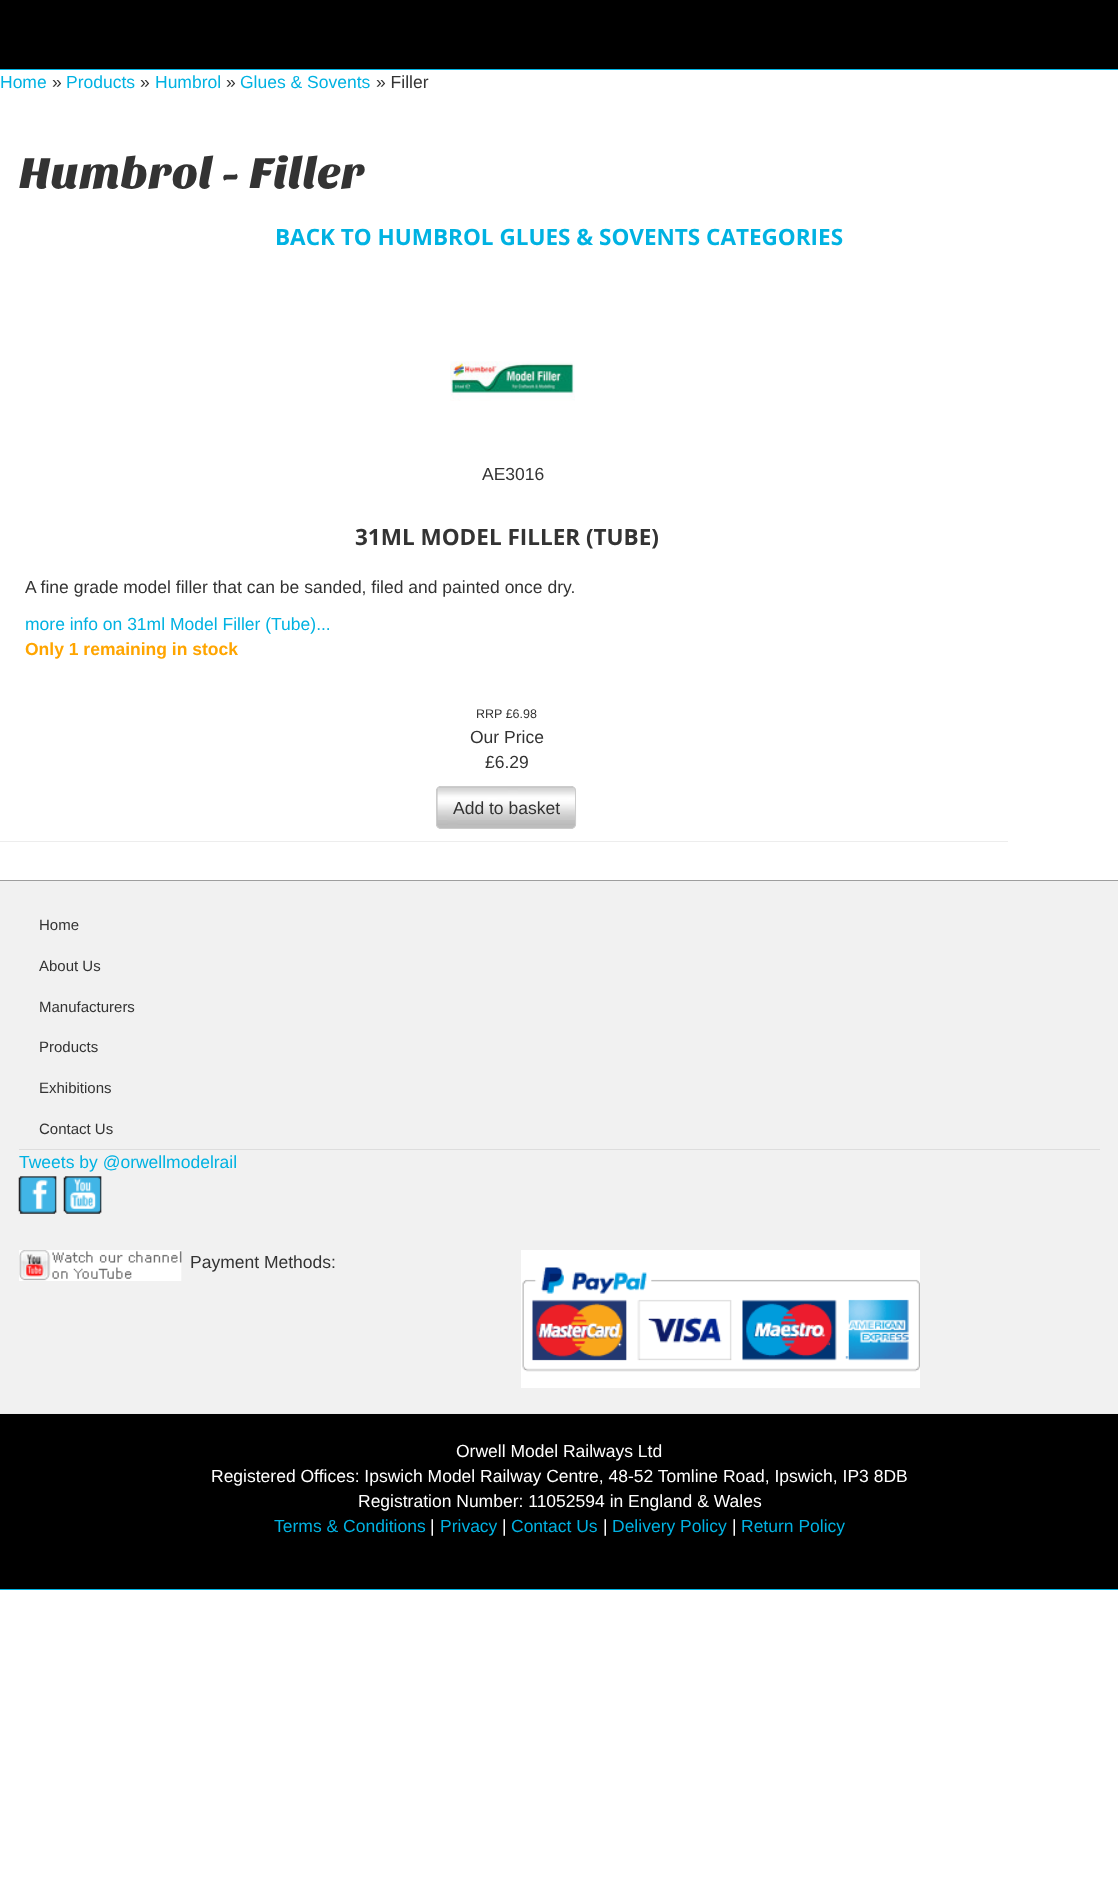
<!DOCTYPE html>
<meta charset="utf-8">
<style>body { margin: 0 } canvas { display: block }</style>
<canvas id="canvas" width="1118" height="1902"></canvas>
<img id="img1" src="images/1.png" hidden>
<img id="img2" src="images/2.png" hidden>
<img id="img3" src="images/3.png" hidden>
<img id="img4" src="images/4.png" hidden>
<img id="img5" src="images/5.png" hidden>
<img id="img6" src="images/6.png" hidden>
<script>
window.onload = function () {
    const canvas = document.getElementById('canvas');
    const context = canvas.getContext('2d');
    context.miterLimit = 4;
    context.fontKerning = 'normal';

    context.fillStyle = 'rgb(255, 255, 255)';
    context.fillRect(0, 0, 1118, 1902);
    context.fillStyle = 'rgb(0, 178, 226)';
    context.fillRect(0, 1589, 1118, 1);
    context.fillRect(0, 69, 1118, 1);
    context.fillStyle = 'rgb(0, 0, 0)';
    context.fillRect(0, 0, 1118, 69);
    context.fillStyle = 'rgb(237, 237, 237)';
    context.fillRect(0, 841, 1008, 1);
    context.drawImage(document.getElementById('img1'), 450, 361, 125, 40);
    context.fillStyle = 'rgb(189, 189, 189)';
    context.beginPath();
    context.roundRect(436, 786, 140, 43, 5);
    context.fill();
    context.drawImage(document.getElementById('img2'), 437, 787, 140, 38);
    context.beginPath();
    context.roundRect(436.5, 786.5, 139, 42, 4.5);
    context.strokeStyle = 'rgb(204, 204, 204)';
    context.stroke();
    context.fillStyle = 'rgb(241, 241, 241)';
    context.fillRect(0, 881, 1118, 532);
    context.fillStyle = 'rgb(158, 158, 158)';
    context.fillRect(0, 880, 1118, 1);
    context.fillStyle = 'rgb(237, 237, 237)';
    context.fillRect(0, 1413, 1118, 1);
    context.fillStyle = 'rgb(221, 221, 221)';
    context.fillRect(19, 1149, 1081, 1);
    context.drawImage(document.getElementById('img3'), 18, 1176, 39, 38);
    context.drawImage(document.getElementById('img4'), 63, 1176, 39, 38);
    context.drawImage(document.getElementById('img5'), 19, 1250, 163, 31);
    context.fillStyle = 'rgb(255, 255, 255)';
    context.fillRect(521, 1250, 399, 138);
    context.drawImage(document.getElementById('img6'), 522, 1267, 398, 105);
    context.fillStyle = 'rgb(0, 0, 0)';
    context.fillRect(0, 1414, 1118, 175);
    context.font = '17.5px Liberation Sans';
    context.fillStyle = 'rgb(0, 178, 226)';
    context.fillText('Home', 0, 88);
    context.fillStyle = 'rgb(51, 51, 51)';
    context.fillText('»', 52, 88);
    context.fillStyle = 'rgb(0, 178, 226)';
    context.fillText('Products', 66, 88);
    context.fillStyle = 'rgb(51, 51, 51)';
    context.fillText('»', 140, 88);
    context.fillStyle = 'rgb(0, 178, 226)';
    context.fillText('Humbrol', 155, 88);
    context.fillStyle = 'rgb(51, 51, 51)';
    context.fillText('»', 226, 88);
    context.fillStyle = 'rgb(0, 178, 226)';
    context.fillText('Glues & Sovents', 240, 88);
    context.fillStyle = 'rgb(51, 51, 51)';
    context.fillText('» Filler', 376, 88);
    context.font = '45px Sansita One';
    context.fillText('Humbrol - Filler', 19, 188);
    context.font = 'bold 22.5px Open Sans';
    context.fillStyle = 'rgb(0, 178, 226)';
    context.fillText('BACK TO HUMBROL GLUES & SOVENTS CATEGORIES', 275, 245);
    context.font = '17.5px Liberation Sans';
    context.fillStyle = 'rgb(51, 51, 51)';
    context.fillText('AE3016', 482, 480);
    context.font = 'bold 22.5px Open Sans';
    context.fillText('31ML MODEL FILLER (TUBE)', 355, 545);
    context.font = '17.5px Liberation Sans';
    context.fillText('A fine grade model filler that can be sanded, filed and painted once dry.', 25, 593);
    context.fillStyle = 'rgb(0, 178, 226)';
    context.fillText('more info on 31ml Model Filler (Tube)...', 25, 630);
    context.font = 'bold 17.5px Liberation Sans';
    context.fillStyle = 'rgb(255, 165, 0)';
    context.fillText('Only 1 remaining in stock', 25, 655);
    context.font = '12.5px Liberation Sans';
    context.fillStyle = 'rgb(51, 51, 51)';
    context.fillText('RRP £6.98', 476, 718);
    context.font = '17.5px Liberation Sans';
    context.fillText('Our Price', 470, 743);
    context.fillText('£6.29', 485, 768);
    context.fillText('Add to basket', 453, 814);
    context.font = '15px Liberation Sans';
    context.fillText('Home', 39, 930);
    context.fillText('About Us', 39, 971);
    context.fillText('Manufacturers', 39, 1012);
    context.fillText('Products', 39, 1052);
    context.fillText('Exhibitions', 39, 1093);
    context.fillText('Contact Us', 39, 1134);
    context.font = '17.5px Liberation Sans';
    context.fillStyle = 'rgb(0, 178, 226)';
    context.fillText('Tweets by @orwellmodelrail', 19, 1168);
    context.fillStyle = 'rgb(51, 51, 51)';
    context.fillText('Payment Methods:', 190, 1268);
    context.fillStyle = 'rgb(255, 255, 255)';
    context.fillText('Orwell Model Railways Ltd', 456, 1457);
    context.fillText('Registered Offices: Ipswich Model Railway Centre, 48-52 Tomline Road, Ipswich, IP3 8DB', 211, 1482);
    context.fillText('Registration Number: 11052594 in England & Wales', 358, 1507);
    context.fillStyle = 'rgb(0, 178, 226)';
    context.fillText('Terms & Conditions', 274, 1532);
    context.fillStyle = 'rgb(255, 255, 255)';
    context.fillText('|', 430, 1532);
    context.fillStyle = 'rgb(0, 178, 226)';
    context.fillText('Privacy', 440, 1532);
    context.fillStyle = 'rgb(255, 255, 255)';
    context.fillText('|', 502, 1532);
    context.fillStyle = 'rgb(0, 178, 226)';
    context.fillText('Contact Us', 511, 1532);
    context.fillStyle = 'rgb(255, 255, 255)';
    context.fillText('|', 603, 1532);
    context.fillStyle = 'rgb(0, 178, 226)';
    context.fillText('Delivery Policy', 612, 1532);
    context.fillStyle = 'rgb(255, 255, 255)';
    context.fillText('|', 732, 1532);
    context.fillStyle = 'rgb(0, 178, 226)';
    context.fillText('Return Policy', 741, 1532);
};
</script>
